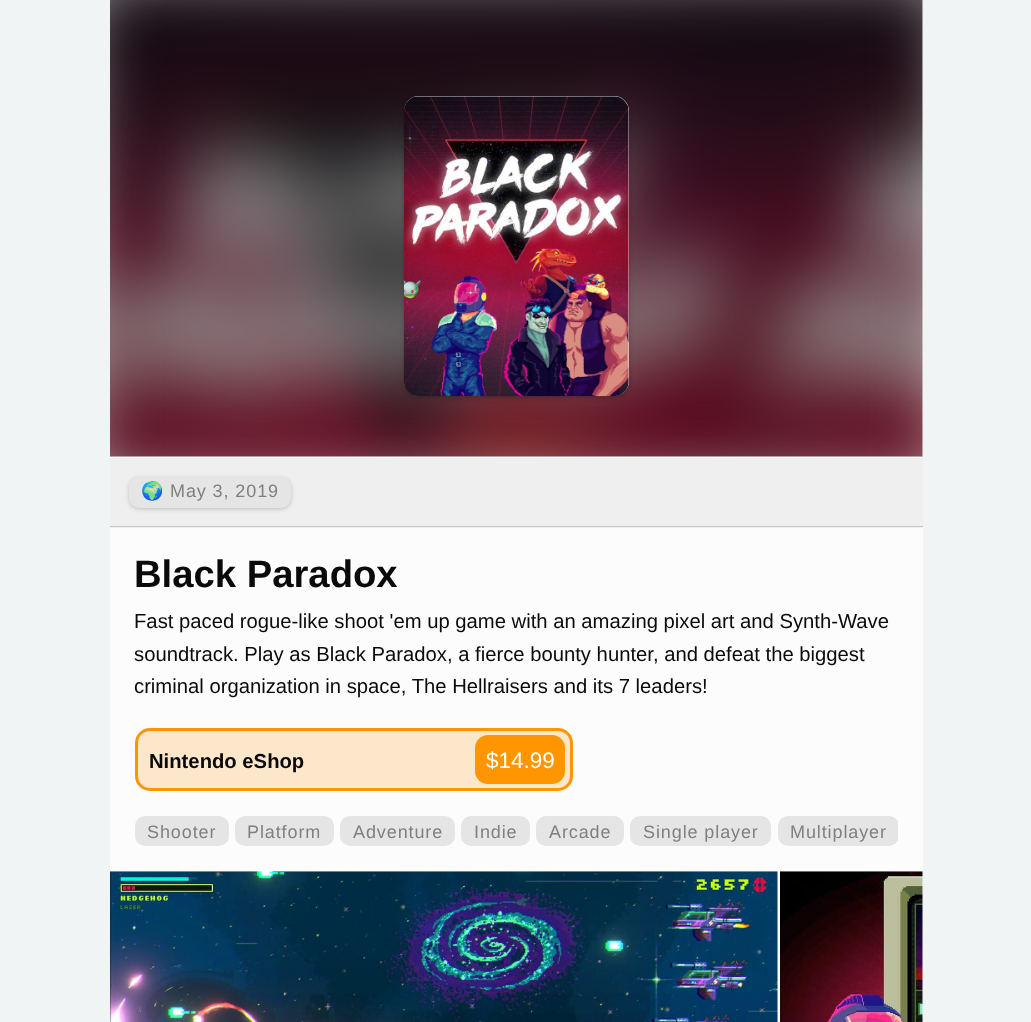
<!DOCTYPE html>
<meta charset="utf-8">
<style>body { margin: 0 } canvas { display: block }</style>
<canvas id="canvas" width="1031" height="1022"></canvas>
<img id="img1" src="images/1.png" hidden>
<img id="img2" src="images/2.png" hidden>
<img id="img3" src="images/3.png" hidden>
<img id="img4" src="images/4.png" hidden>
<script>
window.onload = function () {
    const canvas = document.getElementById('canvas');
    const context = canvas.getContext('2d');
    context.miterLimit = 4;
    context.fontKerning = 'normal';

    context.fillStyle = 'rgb(240, 244, 245)';
    context.fillRect(0, 0, 1031, 1022);
    context.fillStyle = 'rgb(252, 252, 252)';
    context.fillRect(110, 0, 813, 1022);
    context.fillStyle = 'rgb(198, 198, 200)';
    context.fillRect(110, 456, 813, 1);
    context.drawImage(document.getElementById('img1'), 110, 0, 813, 457);
    context.fillStyle = 'rgba(0, 0, 0, 0.2)';
    context.filter = 'blur(2px)';
    context.beginPath();
    context.roundRect(404, 98, 225, 300, 15);
    context.fill();
    context.filter = 'none';
    context.fillStyle = 'rgb(239, 239, 240)';
    context.beginPath();
    context.roundRect(404, 96, 225, 300, 15);
    context.fill();
    context.drawImage(document.getElementById('img2'), 403, 96, 226, 301);
    context.fillRect(110, 458, 813, 70);
    context.fillStyle = 'rgb(198, 198, 200)';
    context.fillRect(110, 526, 813, 1);
    context.fillStyle = 'rgba(0, 0, 0, 0.2)';
    context.filter = 'blur(2px)';
    context.beginPath();
    context.roundRect(129, 478, 162, 31, 10);
    context.fill();
    context.filter = 'none';
    context.fillStyle = 'rgb(229, 229, 230)';
    context.beginPath();
    context.roundRect(129, 476, 162, 32, 10);
    context.fill();
    context.fillStyle = 'rgb(253, 231, 202)';
    context.beginPath();
    context.roundRect(136.5, 729.5, 435, 60, 13.5);
    context.fill();
    context.strokeStyle = 'rgb(255, 149, 0)';
    context.lineWidth = 3;
    context.stroke();
    context.fillStyle = 'rgb(255, 149, 0)';
    context.beginPath();
    context.roundRect(475, 735, 90, 49, 13);
    context.fill();
    context.fillStyle = 'rgb(229, 229, 230)';
    context.beginPath();
    context.roundRect(135, 816, 94, 30, 10);
    context.fill();
    context.beginPath();
    context.roundRect(235, 816, 99, 30, 10);
    context.fill();
    context.beginPath();
    context.roundRect(340, 816, 115, 30, 10);
    context.fill();
    context.beginPath();
    context.roundRect(461, 816, 69, 30, 10);
    context.fill();
    context.beginPath();
    context.roundRect(536, 816, 88, 30, 10);
    context.fill();
    context.beginPath();
    context.roundRect(630, 816, 141, 30, 10);
    context.fill();
    context.save();
    context.beginPath();
    context.rect(135, 816, 763, 30);
    context.clip();
    context.beginPath();
    context.roundRect(778, 816, 121, 30, 10);
    context.fill();
    context.restore();
    context.drawImage(document.getElementById('img3'), 110, 871, 668, 151);
    context.drawImage(document.getElementById('img4'), 780, 871, 143, 151);
    context.letterSpacing = '0.9px';
    context.font = '18px Noto Color Emoji';
    context.fillStyle = 'rgb(128, 128, 128)';
    context.fillText('🌍', 141, 497);
    context.font = '18px Liberation Sans';
    context.fillText('May 3, 2019', 170, 497);
    context.letterSpacing = '0px';
    context.font = 'bold 38.25px Liberation Sans';
    context.fillStyle = 'rgb(10, 10, 10)';
    context.fillText('Black Paradox', 134, 587);
    context.font = '20.25px Liberation Sans';
    context.fillText('Fast paced rogue-like shoot \'em up game with an amazing pixel art and Synth-Wave', 134, 628);
    context.fillText('soundtrack. Play as Black Paradox, a fierce bounty hunter, and defeat the biggest', 134, 661);
    context.fillText('criminal organization in space, The Hellraisers and its 7 leaders!', 134, 693);
    context.font = 'bold 20.25px Liberation Sans';
    context.fillText('Nintendo eShop', 149, 768);
    context.font = '22.5px Liberation Sans';
    context.fillStyle = 'rgb(255, 255, 255)';
    context.fillText('$14.99', 486, 768);
    context.letterSpacing = '0.9px';
    context.font = '18px Liberation Sans';
    context.fillStyle = 'rgb(128, 128, 128)';
    context.fillText('Shooter', 147, 838);
    context.fillText('Platform', 247, 838);
    context.fillText('Adventure', 353, 838);
    context.fillText('Indie', 474, 838);
    context.fillText('Arcade', 549, 838);
    context.fillText('Single player', 643, 838);
    context.fillText('Multiplayer', 790, 838);
};
</script>
